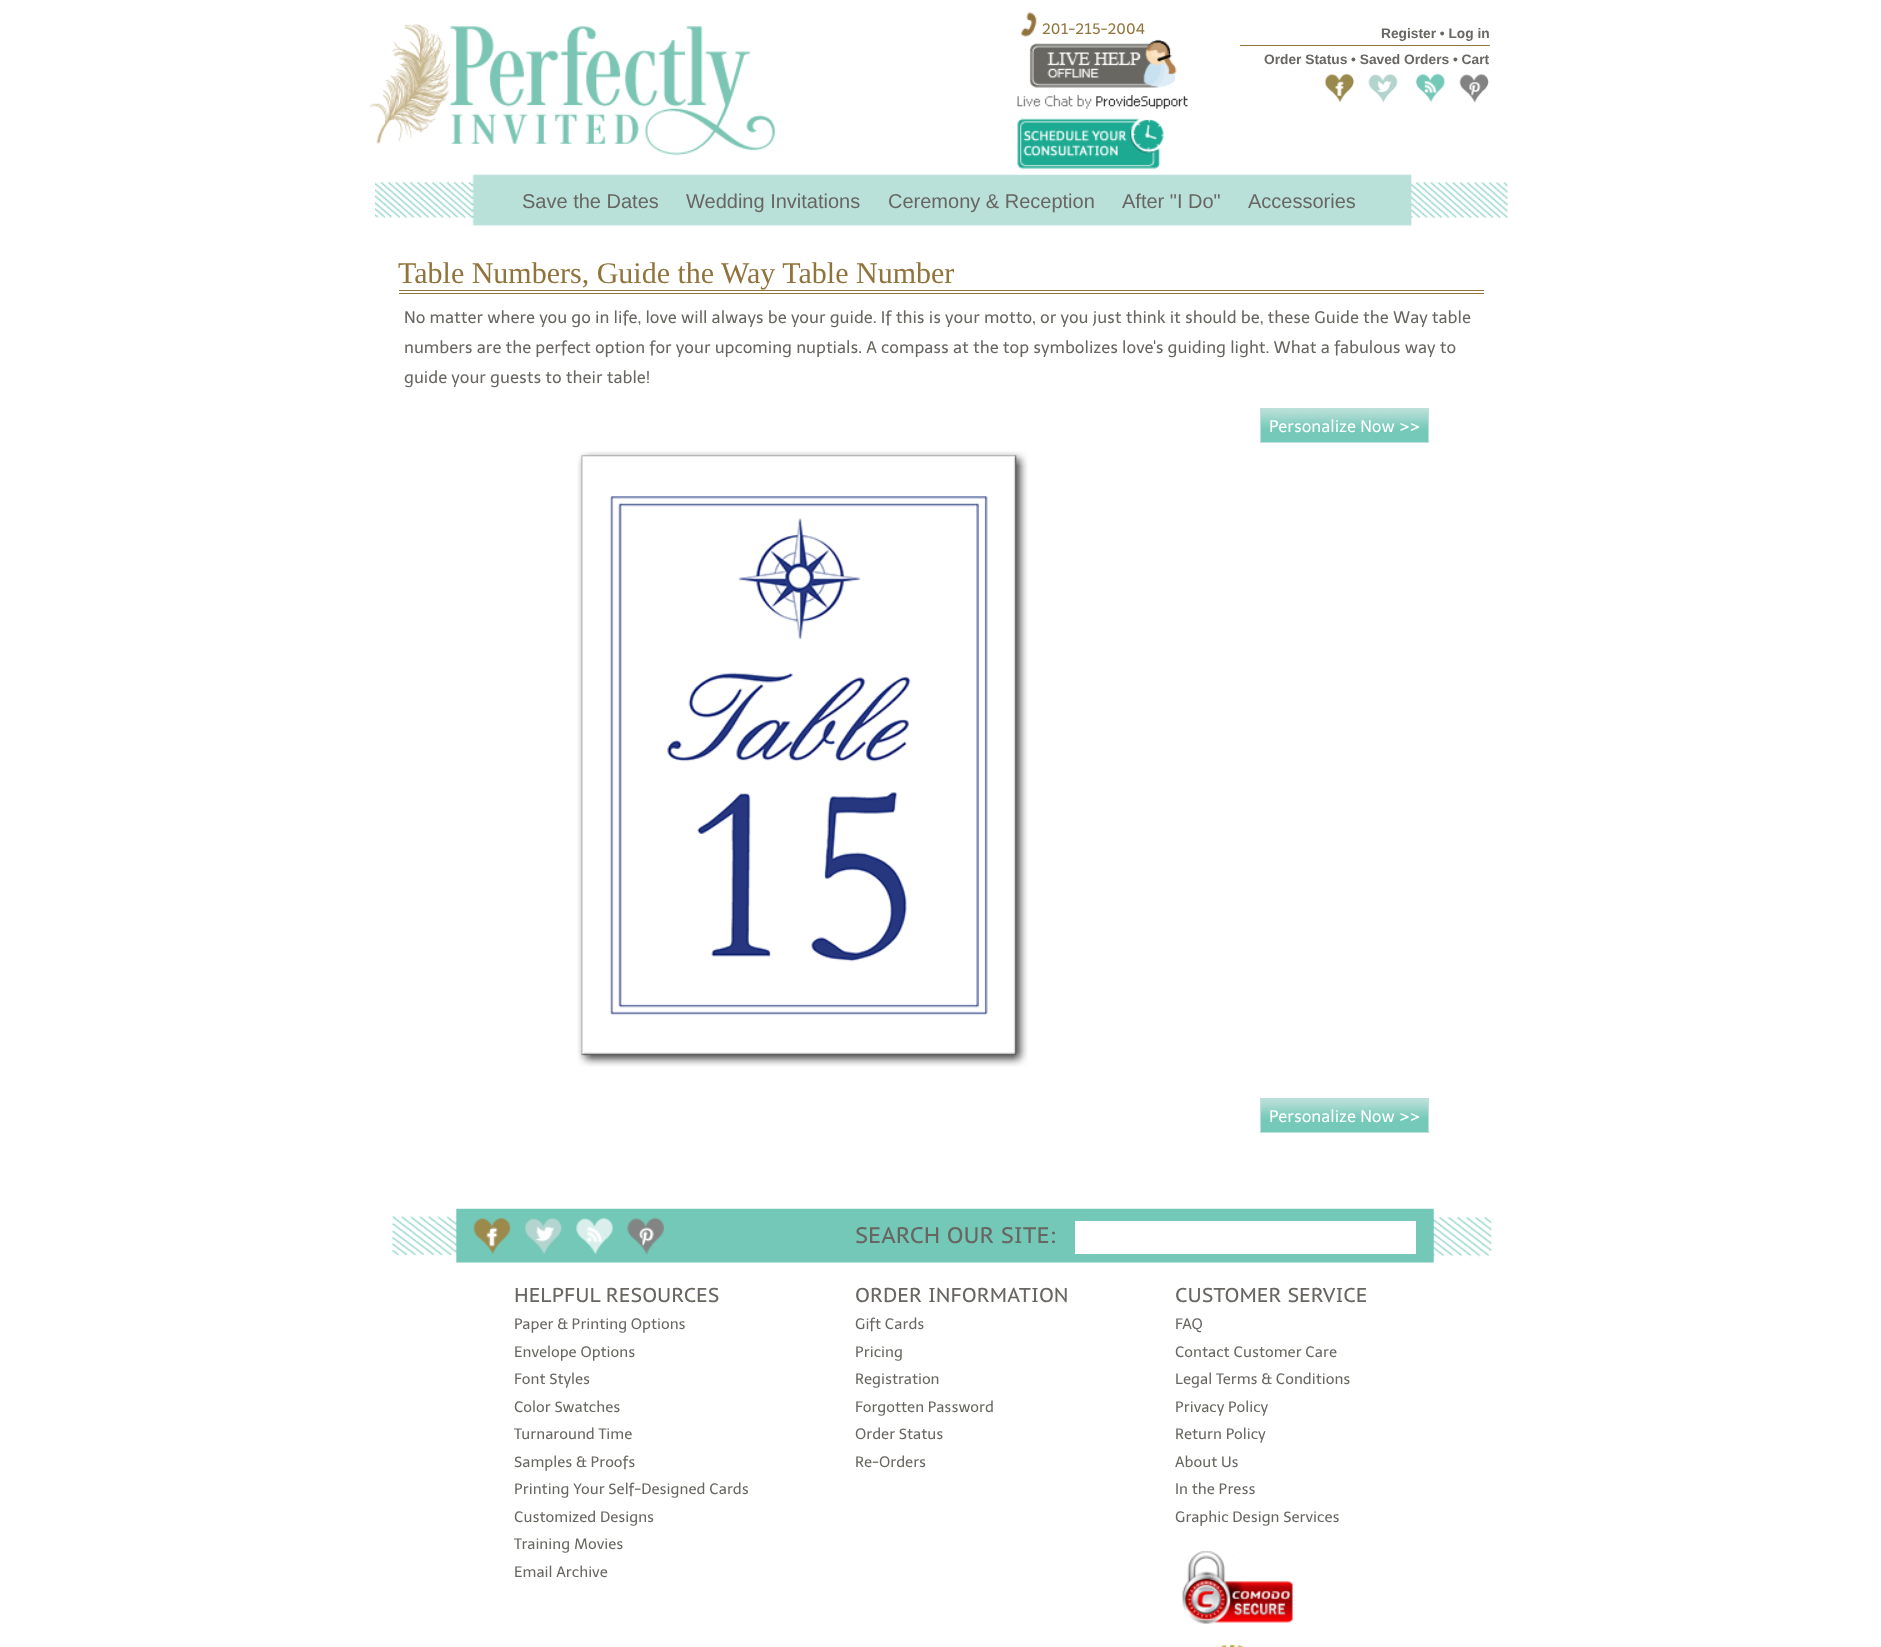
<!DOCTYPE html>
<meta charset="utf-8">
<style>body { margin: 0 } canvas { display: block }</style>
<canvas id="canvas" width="1881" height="1647"></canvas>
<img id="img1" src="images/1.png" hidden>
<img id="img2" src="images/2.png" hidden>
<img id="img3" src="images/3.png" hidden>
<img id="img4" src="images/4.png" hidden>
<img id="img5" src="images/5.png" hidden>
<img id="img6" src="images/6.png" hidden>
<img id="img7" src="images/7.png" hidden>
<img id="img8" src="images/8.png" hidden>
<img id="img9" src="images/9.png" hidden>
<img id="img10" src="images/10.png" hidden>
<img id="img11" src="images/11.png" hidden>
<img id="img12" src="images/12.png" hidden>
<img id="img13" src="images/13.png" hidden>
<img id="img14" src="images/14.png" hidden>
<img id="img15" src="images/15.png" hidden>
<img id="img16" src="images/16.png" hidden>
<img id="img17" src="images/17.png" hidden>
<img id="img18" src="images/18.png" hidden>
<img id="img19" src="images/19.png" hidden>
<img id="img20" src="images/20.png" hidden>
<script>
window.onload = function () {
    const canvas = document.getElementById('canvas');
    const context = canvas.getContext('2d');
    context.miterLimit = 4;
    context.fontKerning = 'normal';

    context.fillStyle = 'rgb(255, 255, 255)';
    context.fillRect(0, 0, 1881, 1647);
    context.drawImage(document.getElementById('img1'), 370, 23, 406, 133);
    context.drawImage(document.getElementById('img2'), 1021, 12, 16, 25);
    context.drawImage(document.getElementById('img3'), 1029, 39, 148, 49);
    context.drawImage(document.getElementById('img4'), 1017, 94, 171, 15);
    context.drawImage(document.getElementById('img5'), 1017, 118, 147, 51);
    context.fillStyle = 'rgb(145, 115, 60)';
    context.fillRect(1240, 45, 250, 1);
    context.drawImage(document.getElementById('img6'), 1324, 73, 31, 30);
    context.drawImage(document.getElementById('img7'), 1368, 74, 30, 29);
    context.drawImage(document.getElementById('img8'), 1416, 73, 29, 30);
    context.drawImage(document.getElementById('img9'), 1459, 74, 30, 29);
    context.drawImage(document.getElementById('img10'), 374, 174, 1134, 53);
    context.fillRect(399, 290, 1085, 1);
    context.fillRect(399, 293, 1085, 1);
    context.drawImage(document.getElementById('img11'), 1261, 409, 167, 33);
    context.strokeStyle = 'rgb(187, 224, 217)';
    context.strokeRect(1260.5, 408.5, 168, 34);
    context.drawImage(document.getElementById('img12'), 577, 451, 451, 616);
    context.drawImage(document.getElementById('img13'), 1261, 1099, 167, 33);
    context.strokeRect(1260.5, 1098.5, 168, 34);
    context.drawImage(document.getElementById('img14'), 391, 1208, 1101, 55);
    context.drawImage(document.getElementById('img15'), 473, 1217, 38, 38);
    context.drawImage(document.getElementById('img16'), 525, 1217, 37, 37);
    context.drawImage(document.getElementById('img17'), 576, 1217, 37, 38);
    context.drawImage(document.getElementById('img18'), 627, 1217, 37, 38);
    context.fillStyle = 'rgb(255, 255, 255)';
    context.fillRect(1075, 1221, 341, 33);
    context.drawImage(document.getElementById('img19'), 1182, 1551, 111, 73);
    context.drawImage(document.getElementById('img20'), 1216, 1644, 28, 3);
    context.font = '15px Telex';
    context.fillStyle = 'rgb(145, 115, 60)';
    context.fillText('201-215-2004', 1042, 34);
    context.font = 'bold 13.75px Liberation Sans';
    context.fillStyle = 'rgb(104, 102, 97)';
    context.fillText('Register • Log in', 1381, 38);
    context.fillText('Order Status • Saved Orders • Cart', 1264, 64);
    context.font = '20px Liberation Sans';
    context.fillText('Save the Dates', 522, 208);
    context.fillText('Wedding Invitations', 686, 208);
    context.fillText('Ceremony & Reception', 888, 208);
    context.fillText('After "I Do"', 1122, 208);
    context.fillText('Accessories', 1248, 208);
    context.font = '30px Liberation Serif';
    context.fillStyle = 'rgb(145, 115, 60)';
    context.fillText('Table Numbers, Guide the Way Table Number', 398, 283);
    context.font = '16.67px Telex';
    context.fillStyle = 'rgb(104, 102, 97)';
    context.fillText('No matter where you go in life, love will always be your guide. If this is your motto, or you just think it should be, these Guide the Way table', 404, 323);
    context.fillText('numbers are the perfect option for your upcoming nuptials. A compass at the top symbolizes love\'s guiding light. What a fabulous way to', 404, 353);
    context.fillText('guide your guests to their table!', 404, 383);
    context.fillStyle = 'rgb(255, 255, 255)';
    context.fillText('Personalize Now >>', 1269, 432);
    context.fillText('Personalize Now >>', 1269, 1122);
    context.font = '22.5px PT Sans Caption';
    context.fillStyle = 'rgb(104, 102, 97)';
    context.fillText('SEARCH OUR SITE:', 855, 1243);
    context.font = '20px PT Sans Caption';
    context.fillText('HELPFUL RESOURCES', 514, 1302);
    context.font = '15px Telex';
    context.fillText('Paper & Printing Options', 514, 1329);
    context.fillText('Envelope Options', 514, 1357);
    context.fillText('Font Styles', 514, 1384);
    context.fillText('Color Swatches', 514, 1412);
    context.fillText('Turnaround Time', 514, 1439);
    context.fillText('Samples & Proofs', 514, 1467);
    context.fillText('Printing Your Self-Designed Cards', 514, 1494);
    context.fillText('Customized Designs', 514, 1522);
    context.fillText('Training Movies', 514, 1549);
    context.fillText('Email Archive', 514, 1577);
    context.font = '20px PT Sans Caption';
    context.fillText('ORDER INFORMATION', 855, 1302);
    context.font = '15px Telex';
    context.fillText('Gift Cards', 855, 1329);
    context.fillText('Pricing', 855, 1357);
    context.fillText('Registration', 855, 1384);
    context.fillText('Forgotten Password', 855, 1412);
    context.fillText('Order Status', 855, 1439);
    context.fillText('Re-Orders', 855, 1467);
    context.font = '20px PT Sans Caption';
    context.fillText('CUSTOMER SERVICE', 1175, 1302);
    context.font = '15px Telex';
    context.fillText('FAQ', 1175, 1329);
    context.fillText('Contact Customer Care', 1175, 1357);
    context.fillText('Legal Terms & Conditions', 1175, 1384);
    context.fillText('Privacy Policy', 1175, 1412);
    context.fillText('Return Policy', 1175, 1439);
    context.fillText('About Us', 1175, 1467);
    context.fillText('In the Press', 1175, 1494);
    context.fillText('Graphic Design Services', 1175, 1522);
};
</script>
